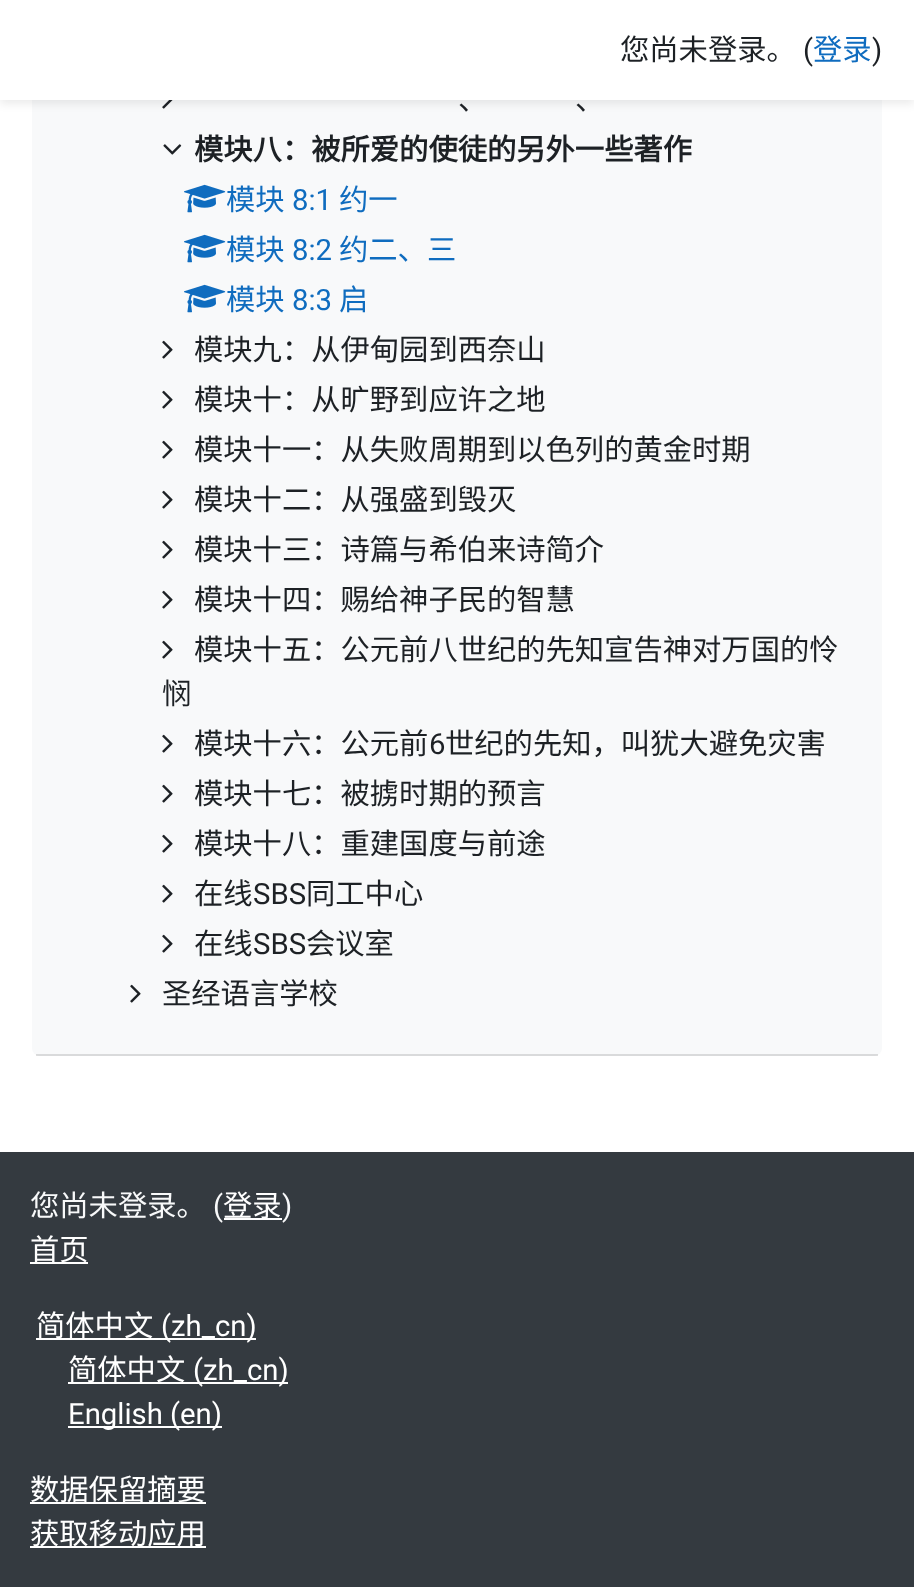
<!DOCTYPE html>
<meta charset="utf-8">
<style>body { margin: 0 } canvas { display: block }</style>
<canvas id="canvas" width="914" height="1587"></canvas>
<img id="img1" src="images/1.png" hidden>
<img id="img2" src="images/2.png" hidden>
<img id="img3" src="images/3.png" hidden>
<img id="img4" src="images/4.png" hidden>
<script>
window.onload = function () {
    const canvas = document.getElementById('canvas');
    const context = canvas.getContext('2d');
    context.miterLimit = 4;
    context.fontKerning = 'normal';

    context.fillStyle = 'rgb(255, 255, 255)';
    context.fillRect(0, 0, 914, 1587);
    context.fillStyle = 'rgb(248, 249, 250)';
    context.beginPath();
    context.roundRect(32, -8, 850, 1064, 8);
    context.fill();
    context.drawImage(document.getElementById('img1'), 162, 100, 11, 9);
    context.fillStyle = 'rgba(0, 0, 0, 0.08)';
    context.filter = 'blur(4px)';
    context.beginPath();
    context.rect(0, 4, 914, 100);
    context.fill();
    context.filter = 'none';
    context.fillStyle = 'rgb(255, 255, 255)';
    context.fillRect(0, 0, 914, 100);
    context.fillStyle = 'rgba(0, 0, 0, 0.12)';
    context.fillRect(36, 1054, 842, 2);
    context.drawImage(document.getElementById('img2'), 163, 144, 19, 11);
    context.drawImage(document.getElementById('img3'), 184, 184, 42, 29);
    context.drawImage(document.getElementById('img3'), 184, 234, 42, 29);
    context.drawImage(document.getElementById('img3'), 184, 284, 42, 29);
    context.drawImage(document.getElementById('img4'), 162, 340, 11, 19);
    context.drawImage(document.getElementById('img4'), 162, 390, 11, 19);
    context.drawImage(document.getElementById('img4'), 162, 440, 11, 19);
    context.drawImage(document.getElementById('img4'), 162, 490, 11, 19);
    context.drawImage(document.getElementById('img4'), 162, 540, 11, 19);
    context.drawImage(document.getElementById('img4'), 162, 590, 11, 19);
    context.drawImage(document.getElementById('img4'), 162, 640, 11, 19);
    context.drawImage(document.getElementById('img4'), 162, 734, 11, 19);
    context.drawImage(document.getElementById('img4'), 162, 784, 11, 19);
    context.drawImage(document.getElementById('img4'), 162, 834, 11, 19);
    context.drawImage(document.getElementById('img4'), 162, 884, 11, 19);
    context.drawImage(document.getElementById('img4'), 162, 934, 11, 19);
    context.drawImage(document.getElementById('img4'), 130, 984, 11, 19);
    context.fillStyle = 'rgb(52, 58, 64)';
    context.fillRect(0, 1152, 914, 435);
    context.fillStyle = 'rgb(255, 255, 255)';
    context.fillRect(224, 1218, 58, 2);
    context.fillRect(30, 1262, 58, 2);
    context.fillRect(36, 1338, 220, 2);
    context.fillRect(68, 1382, 220, 2);
    context.fillRect(68, 1426, 154, 2);
    context.fillRect(30, 1502, 176, 2);
    context.fillRect(30, 1546, 176, 2);
    context.font = '29.3px Noto Sans CJK SC';
    context.fillStyle = 'rgb(29, 33, 37)';
    context.fillText('您尚未登录。', 620, 60);
    context.font = '29.3px Roboto';
    context.fillText('(', 803, 60);
    context.font = '29.3px Noto Sans CJK SC';
    context.fillStyle = 'rgb(15, 108, 191)';
    context.fillText('登录', 813, 60);
    context.font = '29.3px Roboto';
    context.fillStyle = 'rgb(29, 33, 37)';
    context.fillText(')', 872, 60);
    context.font = '29.3px Noto Sans CJK SC';
    context.fillText('、', 458, 110);
    context.fillText('、', 575, 110);
    context.font = 'bold 29.3px Noto Sans CJK SC';
    context.fillText('模块八：被所爱的使徒的另外一些著作', 194, 160);
    context.font = '29.3px Noto Sans CJK SC';
    context.fillStyle = 'rgb(15, 108, 191)';
    context.fillText('模块', 226, 210);
    context.font = '29.3px Roboto';
    context.fillText('8:1', 292, 210);
    context.font = '29.3px Noto Sans CJK SC';
    context.fillText('约一', 339, 210);
    context.fillText('模块', 226, 260);
    context.font = '29.3px Roboto';
    context.fillText('8:2', 292, 260);
    context.font = '29.3px Noto Sans CJK SC';
    context.fillText('约二、三', 339, 260);
    context.fillText('模块', 226, 310);
    context.font = '29.3px Roboto';
    context.fillText('8:3', 292, 310);
    context.font = '29.3px Noto Sans CJK SC';
    context.fillText('启', 339, 310);
    context.fillStyle = 'rgb(29, 33, 37)';
    context.fillText('模块九：从伊甸园到西奈山', 194, 360);
    context.fillText('模块十：从旷野到应许之地', 194, 410);
    context.fillText('模块十一：从失败周期到以色列的黄金时期', 194, 460);
    context.fillText('模块十二：从强盛到毁灭', 194, 510);
    context.fillText('模块十三：诗篇与希伯来诗简介', 194, 560);
    context.fillText('模块十四：赐给神子民的智慧', 194, 610);
    context.fillText('模块十五：公元前八世纪的先知宣告神对万国的怜', 194, 660);
    context.fillText('悯', 162, 704);
    context.fillText('模块十六：公元前', 194, 754);
    context.font = '29.3px Roboto';
    context.fillText('6', 429, 754);
    context.font = '29.3px Noto Sans CJK SC';
    context.fillText('世纪的先知，叫犹大避免灾害', 445, 754);
    context.fillText('模块十七：被掳时期的预言', 194, 804);
    context.fillText('模块十八：重建国度与前途', 194, 854);
    context.fillText('在线', 194, 904);
    context.font = '29.3px Roboto';
    context.fillText('SBS', 253, 904);
    context.font = '29.3px Noto Sans CJK SC';
    context.fillText('同工中心', 306, 904);
    context.fillText('在线', 194, 954);
    context.font = '29.3px Roboto';
    context.fillText('SBS', 253, 954);
    context.font = '29.3px Noto Sans CJK SC';
    context.fillText('会议室', 306, 954);
    context.fillText('圣经语言学校', 162, 1004);
    context.fillStyle = 'rgb(248, 249, 250)';
    context.fillText('您尚未登录。', 30, 1216);
    context.font = '29.3px Roboto';
    context.fillText('(', 213, 1216);
    context.font = '29.3px Noto Sans CJK SC';
    context.fillStyle = 'rgb(255, 255, 255)';
    context.fillText('登录', 223, 1216);
    context.font = '29.3px Roboto';
    context.fillStyle = 'rgb(248, 249, 250)';
    context.fillText(')', 282, 1216);
    context.font = '29.3px Noto Sans CJK SC';
    context.fillStyle = 'rgb(255, 255, 255)';
    context.fillText('首页', 30, 1260);
    context.fillText('简体中文', 36, 1336);
    context.font = '29.3px Roboto';
    context.fillText('(zh_cn)', 161, 1336);
    context.font = '29.3px Noto Sans CJK SC';
    context.fillText('简体中文', 68, 1380);
    context.font = '29.3px Roboto';
    context.fillText('(zh_cn)', 193, 1380);
    context.fillText('English (en)', 68, 1424);
    context.font = '29.3px Noto Sans CJK SC';
    context.fillText('数据保留摘要', 30, 1500);
    context.fillText('获取移动应用', 30, 1544);
};
</script>
